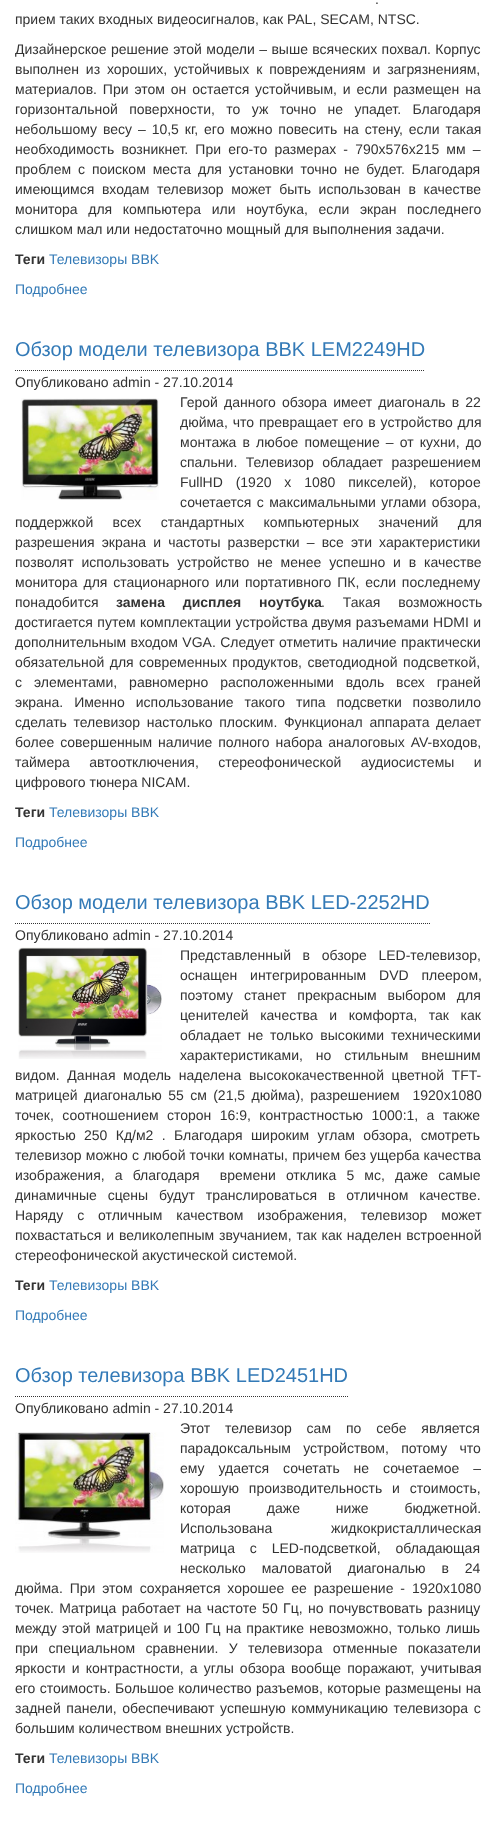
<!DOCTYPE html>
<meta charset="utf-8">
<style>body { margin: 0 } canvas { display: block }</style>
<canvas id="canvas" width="496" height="1846"></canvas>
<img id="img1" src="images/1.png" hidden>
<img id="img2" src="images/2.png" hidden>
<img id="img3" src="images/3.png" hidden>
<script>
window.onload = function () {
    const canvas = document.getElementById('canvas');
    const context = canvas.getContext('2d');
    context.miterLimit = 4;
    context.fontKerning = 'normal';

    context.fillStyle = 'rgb(255, 255, 255)';
    context.fillRect(0, 0, 496, 1846);
    context.beginPath();
    context.moveTo(15, 370.5);
    context.lineTo(425, 370.5);
    context.strokeStyle = 'rgb(51, 51, 51)';
    context.setLineDash([1, 1]);
    context.stroke();
    context.drawImage(document.getElementById('img1'), 21, 398, 138, 102);
    context.beginPath();
    context.moveTo(15, 923.5);
    context.lineTo(430, 923.5);
    context.stroke();
    context.drawImage(document.getElementById('img2'), 18, 947, 144, 112);
    context.beginPath();
    context.moveTo(15, 1396.5);
    context.lineTo(348, 1396.5);
    context.stroke();
    context.drawImage(document.getElementById('img3'), 15, 1432, 149, 121);
    context.wordSpacing = '7px';
    context.font = '14px Liberation Sans';
    context.fillStyle = 'rgb(51, 51, 51)';
    context.fillText('.', 375, 4);
    context.wordSpacing = '0px';
    context.fillText('прием таких входных видеосигналов, как PAL, SECAM, NTSC.', 15, 24);
    context.wordSpacing = '0.5px';
    context.fillText('Дизайнерское решение этой модели – выше всяческих похвал. Корпус', 15, 54);
    context.wordSpacing = '3px';
    context.fillText('выполнен из хороших, устойчивых к повреждениям и загрязнениям,', 15, 74);
    context.wordSpacing = '2px';
    context.fillText('материалов. При этом он остается устойчивым, и если размещен на', 15, 94);
    context.wordSpacing = '7.5px';
    context.fillText('горизонтальной поверхности, то уж точно не упадет. Благодаря', 15, 114);
    context.wordSpacing = '2px';
    context.fillText('небольшому весу – 10,5 кг, его можно повесить на стену, если такая', 15, 134);
    context.wordSpacing = '3.25px';
    context.fillText('необходимость возникнет. При его-то размерах - 790x576x215 мм –', 15, 154);
    context.wordSpacing = '3px';
    context.fillText('проблем с поиском места для установки точно не будет. Благодаря', 15, 174);
    context.wordSpacing = '3.75px';
    context.fillText('имеющимся входам телевизор может быть использован в качестве', 15, 194);
    context.wordSpacing = '6.75px';
    context.fillText('монитора для компьютера или ноутбука, если экран последнего', 15, 214);
    context.wordSpacing = '0px';
    context.fillText('слишком мал или недостаточно мощный для выполнения задачи.', 15, 234);
    context.font = 'bold 14px Liberation Sans';
    context.fillText('Теги', 15, 264);
    context.font = '14px Liberation Sans';
    context.fillStyle = 'rgb(51, 122, 183)';
    context.fillText('Телевизоры BBK', 49, 264);
    context.fillText('Подробнее', 15, 294);
    context.font = '20px Liberation Sans';
    context.fillText('Обзор модели телевизора BBK LEM2249HD', 15, 356);
    context.font = '14px Liberation Sans';
    context.fillStyle = 'rgb(51, 51, 51)';
    context.fillText('Опубликовано admin - 27.10.2014', 15, 387);
    context.wordSpacing = '2.25px';
    context.fillText('Герой данного обзора имеет диагональ в 22', 180, 407);
    context.wordSpacing = '1px';
    context.fillText('дюйма, что превращает его в устройство для', 180, 427);
    context.wordSpacing = '2.25px';
    context.fillText('монтажа в любое помещение – от кухни, до', 180, 447);
    context.wordSpacing = '4.5px';
    context.fillText('спальни. Телевизор обладает разрешением', 180, 467);
    context.wordSpacing = '9px';
    context.fillText('FullHD (1920 х 1080 пикселей), которое', 180, 487);
    context.wordSpacing = '1.5px';
    context.fillText('сочетается с максимальными углами обзора,', 180, 507);
    context.wordSpacing = '15.5px';
    context.fillText('поддержкой всех стандартных компьютерных значений для', 15, 527);
    context.wordSpacing = '3.25px';
    context.fillText('разрешения экрана и частоты разверстки – все эти характеристики', 15, 547);
    context.wordSpacing = '4px';
    context.fillText('позволят использовать устройство не менее успешно и в качестве', 15, 567);
    context.wordSpacing = '2px';
    context.fillText('монитора для стационарного или портативного ПК, если последнему', 15, 587);
    context.wordSpacing = '0px';
    context.fillText('понадобится', 15, 607);
    context.wordSpacing = '14px';
    context.font = 'bold 14px Liberation Sans';
    context.fillText('замена дисплея ноутбука', 116, 607);
    context.font = '14px Liberation Sans';
    context.fillText('. Такая возможность', 321, 607);
    context.wordSpacing = '0.5px';
    context.fillText('достигается путем комплектации устройства двумя разъемами HDMI и', 15, 627);
    context.fillText('дополнительным входом VGA. Следует отметить наличие практически', 15, 647);
    context.wordSpacing = '1.5px';
    context.fillText('обязательной для современных продуктов, светодиодной подсветкой,', 15, 667);
    context.wordSpacing = '8px';
    context.fillText('с элементами, равномерно расположенными вдоль всех граней', 15, 687);
    context.wordSpacing = '7px';
    context.fillText('экрана. Именно использование такого типа подсветки позволило', 15, 707);
    context.wordSpacing = '2.75px';
    context.fillText('сделать телевизор настолько плоским. Функционал аппарата делает', 15, 727);
    context.wordSpacing = '2px';
    context.fillText('более совершенным наличие полного набора аналоговых AV-входов,', 15, 747);
    context.wordSpacing = '15.5px';
    context.fillText('таймера автоотключения, стереофонической аудиосистемы и', 15, 767);
    context.wordSpacing = '0px';
    context.fillText('цифрового тюнера NICAM.', 15, 787);
    context.font = 'bold 14px Liberation Sans';
    context.fillText('Теги', 15, 817);
    context.font = '14px Liberation Sans';
    context.fillStyle = 'rgb(51, 122, 183)';
    context.fillText('Телевизоры BBK', 49, 817);
    context.fillText('Подробнее', 15, 847);
    context.font = '20px Liberation Sans';
    context.fillText('Обзор модели телевизора BBK LED-2252HD', 15, 909);
    context.font = '14px Liberation Sans';
    context.fillStyle = 'rgb(51, 51, 51)';
    context.fillText('Опубликовано admin - 27.10.2014', 15, 940);
    context.wordSpacing = '7.75px';
    context.fillText('Представленный в обзоре LED-телевизор,', 180, 960);
    context.wordSpacing = '9px';
    context.fillText('оснащен интегрированным DVD плеером,', 180, 980);
    context.wordSpacing = '7px';
    context.fillText('поэтому станет прекрасным выбором для', 180, 1000);
    context.wordSpacing = '7.75px';
    context.fillText('ценителей качества и комфорта, так как', 180, 1020);
    context.wordSpacing = '3px';
    context.fillText('обладает не только высокими техническими', 180, 1040);
    context.wordSpacing = '9px';
    context.fillText('характеристиками, но стильным внешним', 180, 1060);
    context.wordSpacing = '3.75px';
    context.fillText('видом. Данная модель наделена высококачественной цветной TFT-', 15, 1080);
    context.wordSpacing = '2.5px';
    context.fillText('матрицей диагональю 55 см (21,5 дюйма), разрешением  1920х1080', 15, 1100);
    context.wordSpacing = '4.5px';
    context.fillText('точек, соотношением сторон 16:9, контрастностью 1000:1, а также', 15, 1120);
    context.fillText('яркостью 250 Кд/м2 . Благодаря широким углам обзора, смотреть', 15, 1140);
    context.wordSpacing = '0.25px';
    context.fillText('телевизор можно с любой точки комнаты, причем без ущерба качества', 15, 1160);
    context.wordSpacing = '6.25px';
    context.fillText('изображения, а благодаря  времени отклика 5 мс, даже самые', 15, 1180);
    context.wordSpacing = '7px';
    context.fillText('динамичные сцены будут транслироваться в отличном качестве.', 15, 1200);
    context.wordSpacing = '10px';
    context.fillText('Наряду с отличным качеством изображения, телевизор может', 15, 1220);
    context.wordSpacing = '1px';
    context.fillText('похвастаться и великолепным звучанием, так как наделен встроенной', 15, 1240);
    context.wordSpacing = '0px';
    context.fillText('стереофонической акустической системой.', 15, 1260);
    context.font = 'bold 14px Liberation Sans';
    context.fillText('Теги', 15, 1290);
    context.font = '14px Liberation Sans';
    context.fillStyle = 'rgb(51, 122, 183)';
    context.fillText('Телевизоры BBK', 49, 1290);
    context.fillText('Подробнее', 15, 1320);
    context.font = '20px Liberation Sans';
    context.fillText('Обзор телевизора BBK LED2451HD', 15, 1382);
    context.font = '14px Liberation Sans';
    context.fillStyle = 'rgb(51, 51, 51)';
    context.fillText('Опубликовано admin - 27.10.2014', 15, 1413);
    context.wordSpacing = '11px';
    context.fillText('Этот телевизор сам по себе является', 180, 1433);
    context.wordSpacing = '8.5px';
    context.fillText('парадоксальным устройством, потому что', 180, 1453);
    context.wordSpacing = '10px';
    context.fillText('ему удается сочетать не сочетаемое –', 180, 1473);
    context.wordSpacing = '6px';
    context.fillText('хорошую производительность и стоимость,', 180, 1493);
    context.wordSpacing = '32px';
    context.fillText('которая даже ниже бюджетной.', 180, 1513);
    context.wordSpacing = '55px';
    context.fillText('Использована жидкокристаллическая', 180, 1533);
    context.wordSpacing = '11px';
    context.fillText('матрица с LED-подсветкой, обладающая', 180, 1553);
    context.wordSpacing = '12px';
    context.fillText('несколько маловатой диагональю в 24', 180, 1573);
    context.wordSpacing = '3px';
    context.fillText('дюйма. При этом сохраняется хорошее ее разрешение - 1920x1080', 15, 1593);
    context.wordSpacing = '1.5px';
    context.fillText('точек. Матрица работает на частоте 50 Гц, но почувствовать разницу', 15, 1613);
    context.wordSpacing = '1.25px';
    context.fillText('между этой матрицей и 100 Гц на практике невозможно, только лишь', 15, 1633);
    context.wordSpacing = '6.5px';
    context.fillText('при специальном сравнении. У телевизора отменные показатели', 15, 1653);
    context.wordSpacing = '2.25px';
    context.fillText('яркости и контрастности, а углы обзора вообще поражают, учитывая', 15, 1673);
    context.wordSpacing = '0.5px';
    context.fillText('его стоимость. Большое количество разъемов, которые размещены на', 15, 1693);
    context.wordSpacing = '1.75px';
    context.fillText('задней панели, обеспечивают успешную коммуникацию телевизора с', 15, 1713);
    context.wordSpacing = '0px';
    context.fillText('большим количеством внешних устройств.', 15, 1733);
    context.font = 'bold 14px Liberation Sans';
    context.fillText('Теги', 15, 1763);
    context.font = '14px Liberation Sans';
    context.fillStyle = 'rgb(51, 122, 183)';
    context.fillText('Телевизоры BBK', 49, 1763);
    context.fillText('Подробнее', 15, 1793);
};
</script>
